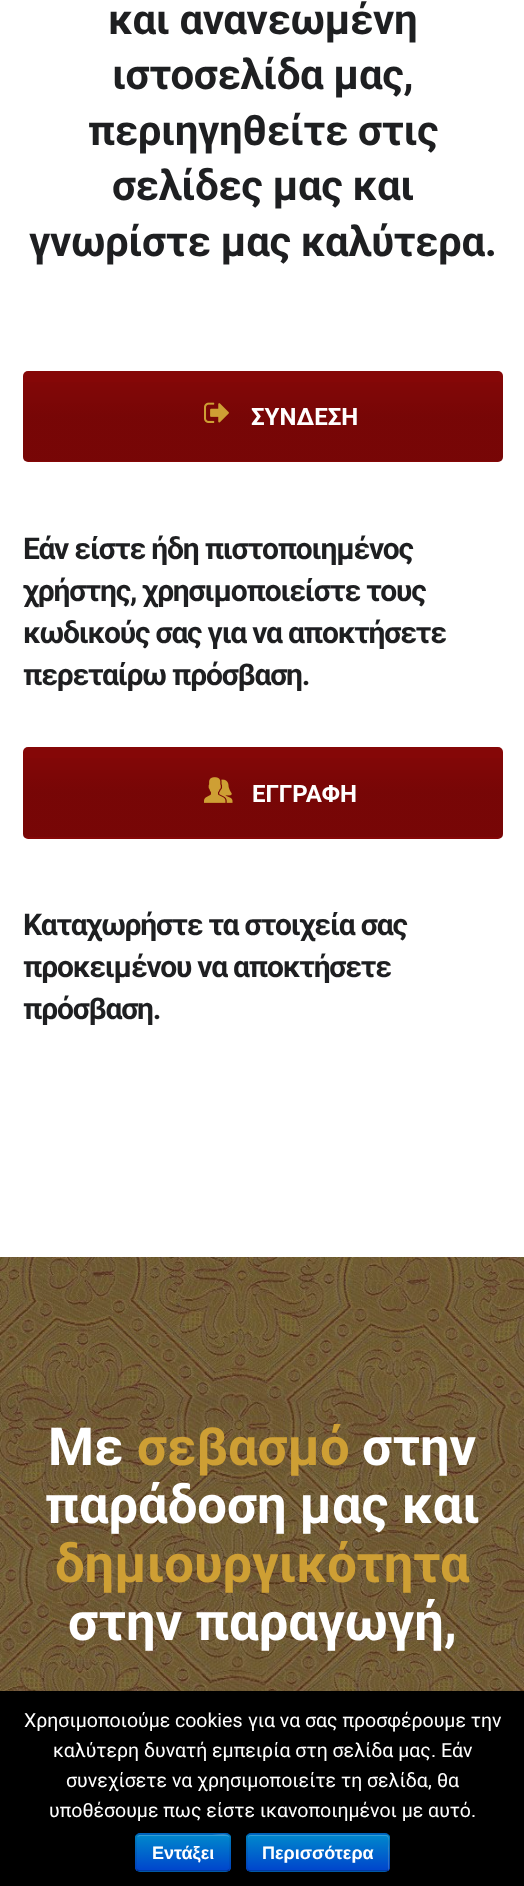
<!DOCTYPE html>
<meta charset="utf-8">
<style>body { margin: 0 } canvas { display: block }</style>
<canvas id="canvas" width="524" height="1886"></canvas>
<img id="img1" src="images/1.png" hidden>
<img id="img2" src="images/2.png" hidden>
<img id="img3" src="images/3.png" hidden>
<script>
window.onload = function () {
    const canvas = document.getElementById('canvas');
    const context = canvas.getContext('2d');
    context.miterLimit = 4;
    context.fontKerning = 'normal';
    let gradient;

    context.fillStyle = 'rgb(255, 255, 255)';
    context.fillRect(0, 0, 524, 1886);
    context.fillStyle = 'rgb(133, 7, 7)';
    context.beginPath();
    context.roundRect(23, 371, 480, 91, 5);
    context.fill();
    context.save();
    context.beginPath();
    context.roundRect(23, 371, 480, 91, 5);
    context.clip();
    gradient = context.createLinearGradient(501, 372, 501, 461);
    gradient.addColorStop(0, 'rgba(0, 0, 0, 0)');
    gradient.addColorStop(0.5, 'rgba(0, 0, 0, 0.1)');
    gradient.addColorStop(1, 'rgba(0, 0, 0, 0.1)');
    context.fillStyle = gradient;
    context.fillRect(23, 382, 480, 79);
    context.restore();
    context.drawImage(document.getElementById('img1'), 204, 402, 25, 21);
    context.beginPath();
    context.roundRect(23, 747, 480, 92, 5);
    context.fill();
    gradient = context.createLinearGradient(501, 748, 501, 837);
    gradient.addColorStop(0, 'rgba(0, 0, 0, 0)');
    gradient.addColorStop(0.5, 'rgba(0, 0, 0, 0.1)');
    gradient.addColorStop(1, 'rgba(0, 0, 0, 0.1)');
    context.fillStyle = gradient;
    context.fillRect(23, 758, 480, 79);
    context.drawImage(document.getElementById('img2'), 204, 777, 29, 26);
    context.drawImage(document.getElementById('img3'), 0, 1257, 524, 434);
    context.fillStyle = 'rgb(0, 0, 0)';
    context.fillRect(0, 1691, 524, 195);
    context.fillStyle = 'rgb(0, 109, 204)';
    context.beginPath();
    context.roundRect(135, 1833, 96, 39, 5);
    context.fill();
    context.save();
    context.beginPath();
    context.roundRect(135, 1833, 96, 39, 5);
    context.clip();
    gradient = context.createLinearGradient(183, 1835, 183, 1871);
    gradient.addColorStop(0, 'rgb(0, 136, 204)');
    gradient.addColorStop(1, 'rgb(0, 68, 204)');
    context.fillStyle = gradient;
    context.fillRect(135, 1835, 96, 36);
    context.restore();
    context.fillStyle = 'rgba(255, 255, 255, 0.2)';
    context.beginPath();
    context.moveTo(140, 1836);
    context.lineTo(226, 1836);
    context.bezierCurveTo(228, 1836, 230, 1837, 230, 1839);
    context.bezierCurveTo(230, 1831, 216, 1835, 212, 1835);
    context.lineTo(139, 1835);
    context.lineTo(137, 1837);
    context.closePath();
    context.fill();
    context.beginPath();
    context.moveTo(229, 1870);
    context.lineTo(227, 1871);
    context.lineTo(139, 1871);
    context.lineTo(137, 1870);
    context.strokeStyle = 'rgba(0, 0, 0, 0.25)';
    context.lineWidth = 1.5;
    context.stroke();
    context.beginPath();
    context.moveTo(137, 1870);
    context.bezierCurveTo(135, 1868.5, 136, 1864.5, 136, 1862.5);
    context.lineTo(136, 1852.5);
    context.bezierCurveTo(136, 1831, 132, 1834, 154, 1834);
    context.lineTo(212, 1834);
    context.bezierCurveTo(234, 1834, 230, 1831, 230, 1852.5);
    context.lineTo(230, 1862.5);
    context.bezierCurveTo(230, 1864.5, 231, 1868.5, 229, 1870);
    context.strokeStyle = 'rgba(0, 0, 0, 0.1)';
    context.stroke();
    context.fillStyle = 'rgb(0, 109, 204)';
    context.beginPath();
    context.roundRect(246, 1833, 144, 39, 5);
    context.fill();
    context.save();
    context.beginPath();
    context.roundRect(246, 1833, 144, 39, 5);
    context.clip();
    gradient = context.createLinearGradient(318, 1835, 318, 1871);
    gradient.addColorStop(0, 'rgb(0, 136, 204)');
    gradient.addColorStop(1, 'rgb(0, 68, 204)');
    context.fillStyle = gradient;
    context.fillRect(246, 1835, 144, 36);
    context.restore();
    context.fillStyle = 'rgba(255, 255, 255, 0.2)';
    context.beginPath();
    context.moveTo(250, 1836);
    context.lineTo(386, 1836);
    context.bezierCurveTo(390, 1836, 388, 1848, 388, 1849);
    context.lineTo(388, 1870);
    context.bezierCurveTo(389, 1870, 389, 1869, 389, 1868);
    context.lineTo(389, 1838);
    context.bezierCurveTo(389, 1836, 388, 1835, 386, 1835);
    context.lineTo(251, 1835);
    context.bezierCurveTo(249, 1835, 248, 1836, 248, 1838);
    context.lineTo(248, 1839);
    context.bezierCurveTo(248, 1837, 249, 1836, 250, 1836);
    context.closePath();
    context.fill();
    context.beginPath();
    context.moveTo(388, 1870);
    context.bezierCurveTo(387.5, 1871, 386.5, 1871, 385.5, 1871);
    context.lineTo(250.5, 1871);
    context.bezierCurveTo(249.5, 1871, 248.5, 1871, 248, 1870);
    context.strokeStyle = 'rgba(0, 0, 0, 0.25)';
    context.stroke();
    context.beginPath();
    context.moveTo(248, 1870);
    context.bezierCurveTo(245.5, 1867.5, 247, 1860, 247, 1857.5);
    context.bezierCurveTo(247, 1828, 241.5, 1834, 273, 1834);
    context.lineTo(363, 1834);
    context.bezierCurveTo(394.5, 1834, 389, 1828, 389, 1857.5);
    context.bezierCurveTo(389, 1860, 390.5, 1867.5, 388, 1870);
    context.strokeStyle = 'rgba(0, 0, 0, 0.1)';
    context.stroke();
    context.letterSpacing = '-0.4px';
    context.font = 'bold 42px Roboto';
    context.fillStyle = 'rgb(30, 31, 33)';
    context.fillText('και ανανεωμένη', 108, 34);
    context.fillText('ιστοσελίδα μας,', 112, 89);
    context.fillText('περιηγηθείτε στις', 88, 145);
    context.fillText('σελίδες μας και', 112, 200);
    context.fillText('γνωρίστε μας καλύτερα.', 29, 256);
    context.letterSpacing = '0px';
    context.font = 'bold 24px Roboto';
    context.fillStyle = 'rgb(255, 255, 255)';
    context.fillText('ΣΥΝΔΕΣΗ', 251, 425);
    context.letterSpacing = '-1.2px';
    context.font = 'bold 30px Roboto';
    context.fillStyle = 'rgb(30, 31, 33)';
    context.fillText('Εάν είστε ήδη πιστοποιημένος', 23, 559);
    context.fillText('χρήστης, χρησιμοποιείστε τους', 23, 601);
    context.fillText('κωδικούς σας για να αποκτήσετε', 23, 643);
    context.fillText('περεταίρω πρόσβαση.', 23, 685);
    context.letterSpacing = '0px';
    context.font = 'bold 24px Roboto';
    context.fillStyle = 'rgb(255, 255, 255)';
    context.fillText('ΕΓΓΡΑΦΗ', 252, 802);
    context.letterSpacing = '-1.2px';
    context.font = 'bold 30px Roboto';
    context.fillStyle = 'rgb(30, 31, 33)';
    context.fillText('Kαταχωρήστε τα στοιχεία σας', 23, 935);
    context.fillText('προκειμένου να αποκτήσετε', 23, 977);
    context.fillText('πρόσβαση.', 23, 1019);
    context.letterSpacing = '0px';
    context.font = 'bold 52.5px Roboto';
    context.fillStyle = 'rgb(255, 255, 255)';
    context.fillText('Με', 48, 1465);
    context.fillStyle = 'rgb(206, 159, 52)';
    context.fillText('σεβασμό', 137, 1465);
    context.fillStyle = 'rgb(255, 255, 255)';
    context.fillText('στην', 362, 1465);
    context.fillText('παράδοση μας και', 45, 1523);
    context.fillStyle = 'rgb(206, 159, 52)';
    context.fillText('δημιουργικότητα', 55, 1582);
    context.fillStyle = 'rgb(255, 255, 255)';
    context.fillText('στην παραγωγή,', 68, 1640);
    context.font = '19.5px Roboto';
    context.fillText('Χρησιμοποιούμε', 24, 1727);
    context.font = '19.5px "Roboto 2"';
    context.fillText('cookies', 175, 1727);
    context.font = '19.5px Roboto';
    context.fillText('για να σας προσφέρουμε την', 248, 1727);
    context.fillText('καλύτερη δυνατή εμπειρία στη σελίδα μας', 53, 1757);
    context.font = '19.5px "Roboto 2"';
    context.fillText('.', 431, 1757);
    context.font = '19.5px Roboto';
    context.fillText('Εάν', 441, 1757);
    context.fillText('συνεχίσετε να χρησιμοποιείτε τη σελίδα', 66, 1787);
    context.font = '19.5px "Roboto 2"';
    context.fillText(',', 428, 1787);
    context.font = '19.5px Roboto';
    context.fillText('θα', 437, 1787);
    context.fillText('υποθέσουμε πως είστε ικανοποιημένοι με αυτό', 49, 1817);
    context.font = '19.5px "Roboto 2"';
    context.fillText('.', 471, 1817);
    context.font = 'bold 18px Liberation Sans';
    context.fillText('Εντάξει', 152, 1859);
    context.fillText('Περισσότερα', 262, 1859);
};
</script>
